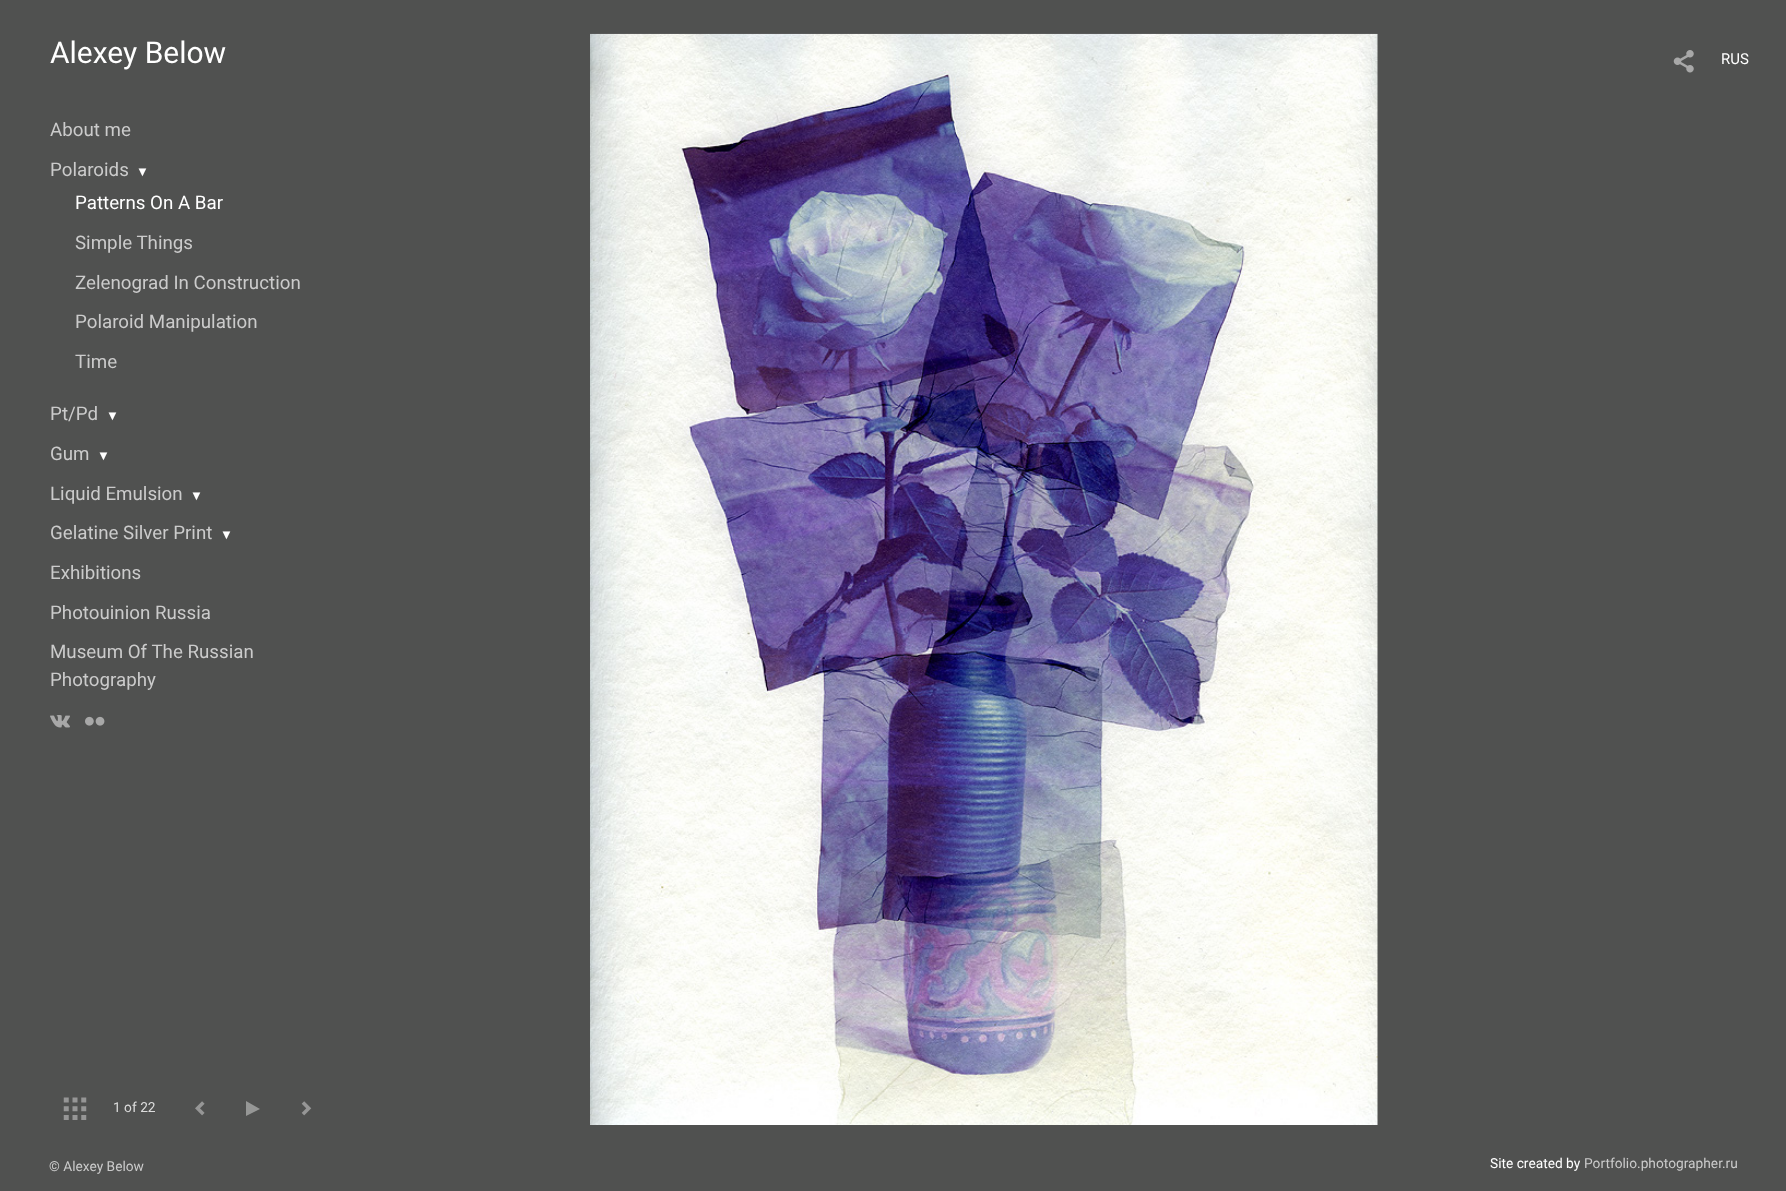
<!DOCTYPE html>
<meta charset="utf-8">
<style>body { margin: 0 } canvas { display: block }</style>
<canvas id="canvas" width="1786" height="1191"></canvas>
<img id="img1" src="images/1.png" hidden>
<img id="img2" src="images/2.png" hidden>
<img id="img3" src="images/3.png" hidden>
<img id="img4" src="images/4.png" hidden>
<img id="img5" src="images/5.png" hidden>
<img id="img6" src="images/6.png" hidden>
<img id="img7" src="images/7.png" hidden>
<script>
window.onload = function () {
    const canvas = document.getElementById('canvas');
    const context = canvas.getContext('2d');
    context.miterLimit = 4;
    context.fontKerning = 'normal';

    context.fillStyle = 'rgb(80, 81, 80)';
    context.fillRect(0, 0, 1786, 1191);
    context.drawImage(document.getElementById('img1'), 50, 715, 20, 13);
    context.drawImage(document.getElementById('img2'), 85, 716, 20, 10);
    context.drawImage(document.getElementById('img3'), 63, 1097, 24, 23);
    context.drawImage(document.getElementById('img4'), 195, 1101, 10, 15);
    context.fillStyle = 'rgb(150, 151, 150)';
    context.beginPath();
    context.moveTo(260, 1109);
    context.lineTo(246, 1116);
    context.lineTo(246, 1101);
    context.closePath();
    context.fill();
    context.drawImage(document.getElementById('img5'), 301, 1101, 11, 15);
    context.drawImage(document.getElementById('img6'), 590, 33, 788, 1092);
    context.drawImage(document.getElementById('img7'), 1673, 50, 21, 23);
    context.font = '30px Roboto';
    context.fillStyle = 'rgb(255, 255, 255)';
    context.fillText('Alexey Below', 50, 63);
    context.font = '18.75px Roboto';
    context.fillStyle = 'rgb(203, 203, 203)';
    context.fillText('About me', 50, 136);
    context.fillText('Polaroids', 50, 176);
    context.font = '13px Liberation Serif';
    context.fillStyle = 'rgb(255, 255, 255)';
    context.fillText('▼', 136, 176);
    context.font = '18.75px Roboto';
    context.fillText('Patterns On A Bar', 75, 209);
    context.fillStyle = 'rgb(203, 203, 203)';
    context.fillText('Simple Things', 75, 249);
    context.fillText('Zelenograd In Construction', 75, 289);
    context.fillText('Polaroid Manipulation', 75, 328);
    context.fillText('Time', 75, 368);
    context.fillText('Pt/Pd', 50, 420);
    context.font = '13px Liberation Serif';
    context.fillStyle = 'rgb(255, 255, 255)';
    context.fillText('▼', 106, 420);
    context.font = '18.75px Roboto';
    context.fillStyle = 'rgb(203, 203, 203)';
    context.fillText('Gum', 50, 460);
    context.font = '13px Liberation Serif';
    context.fillStyle = 'rgb(255, 255, 255)';
    context.fillText('▼', 97, 460);
    context.font = '18.75px Roboto';
    context.fillStyle = 'rgb(203, 203, 203)';
    context.fillText('Liquid Emulsion', 50, 500);
    context.font = '13px Liberation Serif';
    context.fillStyle = 'rgb(255, 255, 255)';
    context.fillText('▼', 190, 500);
    context.font = '18.75px Roboto';
    context.fillStyle = 'rgb(203, 203, 203)';
    context.fillText('Gelatine Silver Print', 50, 539);
    context.font = '13px Liberation Serif';
    context.fillStyle = 'rgb(255, 255, 255)';
    context.fillText('▼', 220, 539);
    context.font = '18.75px Roboto';
    context.fillStyle = 'rgb(203, 203, 203)';
    context.fillText('Exhibitions', 50, 579);
    context.fillText('Photouinion Russia', 50, 619);
    context.fillText('Museum Of The Russian', 50, 658);
    context.fillText('Photography', 50, 686);
    context.font = '13.75px Roboto';
    context.fillStyle = 'rgb(220, 220, 220)';
    context.fillText('1 of 22', 113, 1112);
    context.font = '15px Roboto';
    context.fillStyle = 'rgb(255, 255, 255)';
    context.fillText('RUS', 1721, 64);
    context.font = '13.75px Roboto';
    context.fillStyle = 'rgb(203, 203, 203)';
    context.fillText('© Alexey Below', 49, 1171);
    context.fillStyle = 'rgb(255, 255, 255)';
    context.fillText('Site created by', 1490, 1168);
    context.fillStyle = 'rgb(203, 203, 203)';
    context.fillText('Portfolio.photographer.ru', 1584, 1168);
};
</script>
